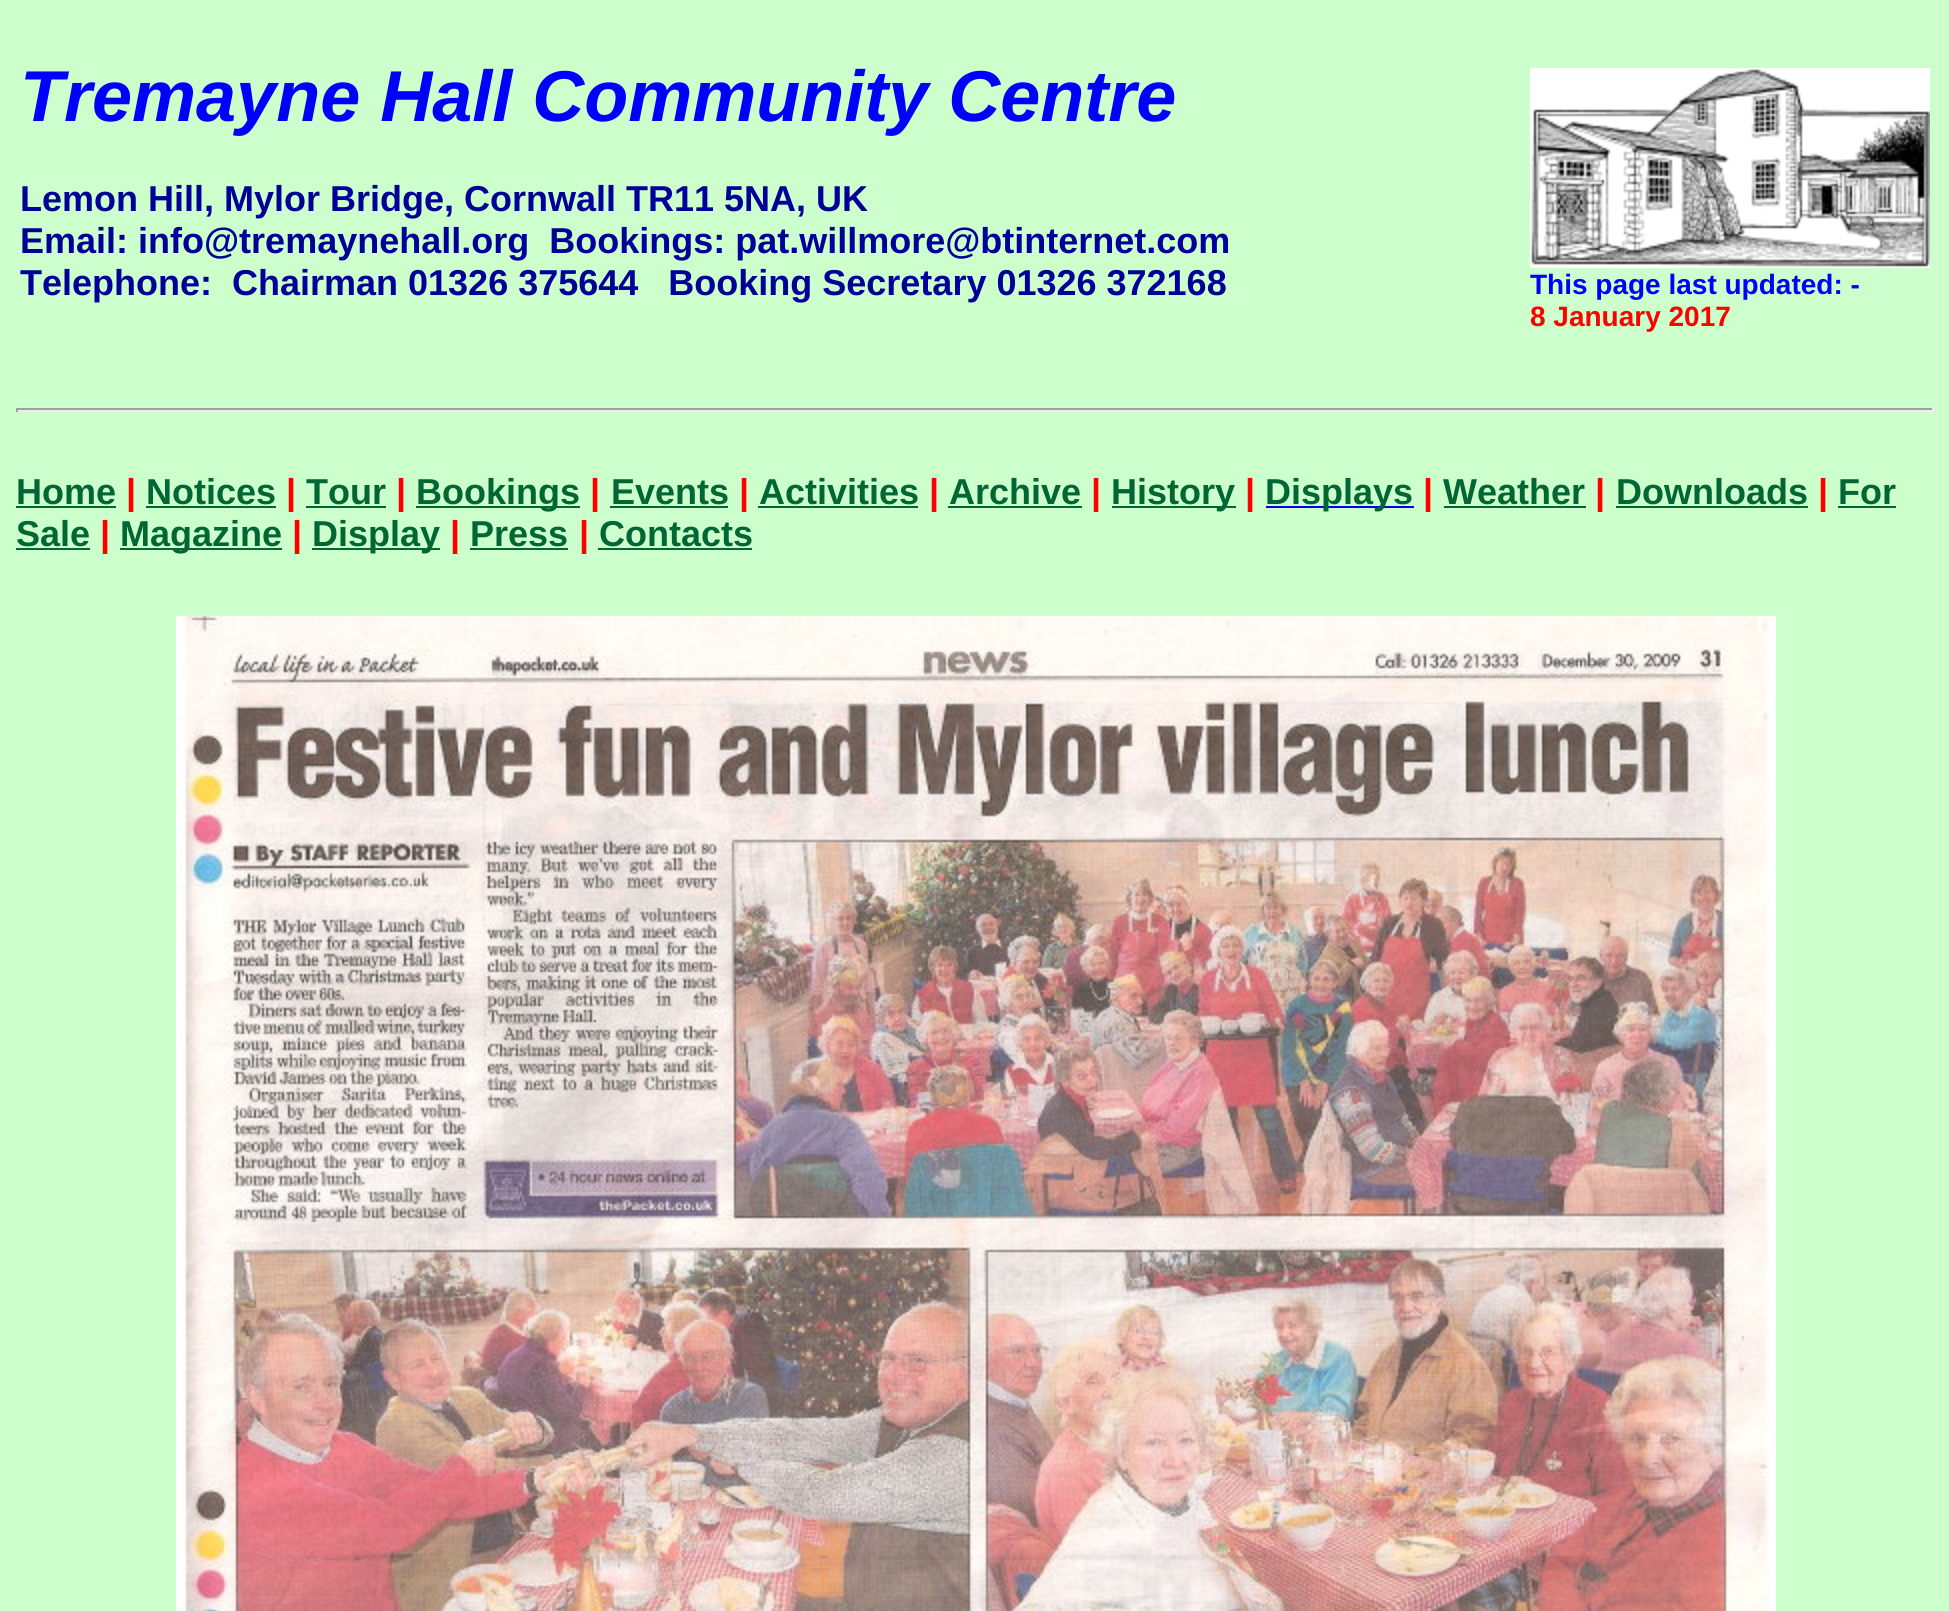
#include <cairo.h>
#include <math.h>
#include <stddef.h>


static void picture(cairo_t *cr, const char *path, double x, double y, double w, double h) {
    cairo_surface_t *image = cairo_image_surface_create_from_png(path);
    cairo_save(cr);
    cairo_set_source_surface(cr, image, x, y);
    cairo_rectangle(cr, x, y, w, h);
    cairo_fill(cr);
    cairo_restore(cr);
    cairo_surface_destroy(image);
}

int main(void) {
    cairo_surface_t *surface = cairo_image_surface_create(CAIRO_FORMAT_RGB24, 1949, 1611);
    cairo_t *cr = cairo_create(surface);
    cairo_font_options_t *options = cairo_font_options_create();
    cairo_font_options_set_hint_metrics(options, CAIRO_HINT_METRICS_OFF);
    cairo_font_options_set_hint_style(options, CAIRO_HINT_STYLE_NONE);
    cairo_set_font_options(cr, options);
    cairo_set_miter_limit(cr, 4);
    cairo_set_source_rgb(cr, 0.8, 1, 0.8);
    cairo_paint(cr);
    cairo_select_font_face(cr, "Liberation Sans", CAIRO_FONT_SLANT_ITALIC, CAIRO_FONT_WEIGHT_BOLD);
    cairo_set_font_size(cr, 72);
    cairo_set_source_rgb(cr, 0, 0, 1);
    cairo_move_to(cr, 20, 121);
    cairo_show_text(cr, "Tremayne Hall Community Centre");
    cairo_select_font_face(cr, "Liberation Sans", CAIRO_FONT_SLANT_NORMAL, CAIRO_FONT_WEIGHT_BOLD);
    cairo_set_font_size(cr, 36);
    cairo_set_source_rgb(cr, 0, 0, 0.6);
    cairo_move_to(cr, 20, 211);
    cairo_show_text(cr, "Lemon Hill, Mylor Bridge, Cornwall TR11 5NA, UK");
    cairo_move_to(cr, 20, 253);
    cairo_show_text(cr, "Email: info@tremaynehall.org  Bookings: pat.willmore@btinternet.com");
    cairo_move_to(cr, 20, 295);
    cairo_show_text(cr, "Telephone:  Chairman 01326 375644   Booking Secretary 01326 372168");
    picture(cr, "img1.png", 1530, 68, 400, 200);
    cairo_set_font_size(cr, 28);
    cairo_set_source_rgb(cr, 0, 0, 1);
    cairo_move_to(cr, 1530, 294);
    cairo_show_text(cr, "This page last updated: -");
    cairo_set_source_rgb(cr, 1, 0, 0);
    cairo_move_to(cr, 1530, 326);
    cairo_show_text(cr, "8 January 2017");
    cairo_set_source_rgb(cr, 0.624, 0.624, 0.624);
    cairo_rectangle(cr, 16, 408, 1918, 2);
    cairo_fill(cr);
    cairo_set_source_rgb(cr, 0.933, 0.933, 0.933);
    cairo_rectangle(cr, 1932, 408, 2, 4);
    cairo_fill(cr);
    cairo_rectangle(cr, 16, 410, 1918, 2);
    cairo_fill(cr);
    cairo_set_source_rgb(cr, 0.624, 0.624, 0.624);
    cairo_rectangle(cr, 16, 408, 2, 4);
    cairo_fill(cr);
    cairo_set_font_size(cr, 36);
    cairo_set_source_rgb(cr, 0, 0.4, 0.2);
    cairo_move_to(cr, 16, 504);
    cairo_show_text(cr, "Home");
    cairo_rectangle(cr, 16, 506, 100, 2);
    cairo_fill(cr);
    cairo_set_source_rgb(cr, 1, 0, 0);
    cairo_move_to(cr, 126, 504);
    cairo_show_text(cr, "|");
    cairo_set_source_rgb(cr, 0, 0.4, 0.2);
    cairo_move_to(cr, 146, 504);
    cairo_show_text(cr, "Notices");
    cairo_rectangle(cr, 146, 506, 130, 2);
    cairo_fill(cr);
    cairo_set_source_rgb(cr, 1, 0, 0);
    cairo_move_to(cr, 286, 504);
    cairo_show_text(cr, "|");
    cairo_set_source_rgb(cr, 0, 0.4, 0.2);
    cairo_move_to(cr, 306, 504);
    cairo_show_text(cr, "Tour");
    cairo_rectangle(cr, 306, 506, 80, 2);
    cairo_fill(cr);
    cairo_set_source_rgb(cr, 1, 0, 0);
    cairo_move_to(cr, 396, 504);
    cairo_show_text(cr, "|");
    cairo_set_source_rgb(cr, 0, 0.4, 0.2);
    cairo_rectangle(cr, 416, 506, 164, 2);
    cairo_fill(cr);
    cairo_move_to(cr, 416, 504);
    cairo_show_text(cr, "Bookings");
    cairo_set_source_rgb(cr, 1, 0, 0);
    cairo_move_to(cr, 590, 504);
    cairo_show_text(cr, "|");
    cairo_set_source_rgb(cr, 0, 0.4, 0.2);
    cairo_move_to(cr, 611, 504);
    cairo_show_text(cr, "Events");
    cairo_rectangle(cr, 610, 506, 118, 2);
    cairo_fill(cr);
    cairo_set_source_rgb(cr, 1, 0, 0);
    cairo_move_to(cr, 739, 504);
    cairo_show_text(cr, "|");
    cairo_set_source_rgb(cr, 0, 0.4, 0.2);
    cairo_move_to(cr, 759, 504);
    cairo_show_text(cr, "Activities");
    cairo_rectangle(cr, 758, 506, 160, 2);
    cairo_fill(cr);
    cairo_set_source_rgb(cr, 1, 0, 0);
    cairo_move_to(cr, 929, 504);
    cairo_show_text(cr, "|");
    cairo_set_source_rgb(cr, 0, 0.4, 0.2);
    cairo_move_to(cr, 949, 504);
    cairo_show_text(cr, "Archive");
    cairo_rectangle(cr, 948, 506, 134, 2);
    cairo_fill(cr);
    cairo_set_source_rgb(cr, 1, 0, 0);
    cairo_move_to(cr, 1091, 504);
    cairo_show_text(cr, "|");
    cairo_set_source_rgb(cr, 0, 0.4, 0.2);
    cairo_rectangle(cr, 1112, 506, 124, 2);
    cairo_fill(cr);
    cairo_move_to(cr, 1111, 504);
    cairo_show_text(cr, "History");
    cairo_set_source_rgb(cr, 1, 0, 0);
    cairo_move_to(cr, 1245, 504);
    cairo_show_text(cr, "|");
    cairo_set_source_rgb(cr, 0, 0, 0.933);
    cairo_rectangle(cr, 1266, 506, 148, 2);
    cairo_fill(cr);
    cairo_set_source_rgb(cr, 0, 0.4, 0.2);
    cairo_move_to(cr, 1265, 504);
    cairo_show_text(cr, "Displays");
    cairo_set_source_rgb(cr, 1, 0, 0);
    cairo_move_to(cr, 1423, 504);
    cairo_show_text(cr, "|");
    cairo_set_source_rgb(cr, 0, 0.4, 0.2);
    cairo_move_to(cr, 1443, 504);
    cairo_show_text(cr, "Weather");
    cairo_rectangle(cr, 1444, 506, 142, 2);
    cairo_fill(cr);
    cairo_set_source_rgb(cr, 1, 0, 0);
    cairo_move_to(cr, 1595, 504);
    cairo_show_text(cr, "|");
    cairo_set_source_rgb(cr, 0, 0.4, 0.2);
    cairo_move_to(cr, 1616, 504);
    cairo_show_text(cr, "Downloads");
    cairo_rectangle(cr, 1616, 506, 192, 2);
    cairo_fill(cr);
    cairo_set_source_rgb(cr, 1, 0, 0);
    cairo_move_to(cr, 1818, 504);
    cairo_show_text(cr, "|");
    cairo_set_source_rgb(cr, 0, 0.4, 0.2);
    cairo_move_to(cr, 1838, 504);
    cairo_show_text(cr, "For");
    cairo_rectangle(cr, 1838, 506, 58, 2);
    cairo_fill(cr);
    cairo_move_to(cr, 16, 546);
    cairo_show_text(cr, "Sale");
    cairo_rectangle(cr, 16, 548, 74, 2);
    cairo_fill(cr);
    cairo_set_source_rgb(cr, 1, 0, 0);
    cairo_move_to(cr, 100, 546);
    cairo_show_text(cr, "|");
    cairo_set_source_rgb(cr, 0, 0.4, 0.2);
    cairo_rectangle(cr, 120, 548, 162, 2);
    cairo_fill(cr);
    cairo_move_to(cr, 120, 546);
    cairo_show_text(cr, "Magazine");
    cairo_set_source_rgb(cr, 1, 0, 0);
    cairo_move_to(cr, 292, 546);
    cairo_show_text(cr, "|");
    cairo_set_source_rgb(cr, 0, 0.4, 0.2);
    cairo_rectangle(cr, 312, 548, 128, 2);
    cairo_fill(cr);
    cairo_move_to(cr, 312, 546);
    cairo_show_text(cr, "Display");
    cairo_set_source_rgb(cr, 1, 0, 0);
    cairo_move_to(cr, 450, 546);
    cairo_show_text(cr, "|");
    cairo_set_source_rgb(cr, 0, 0.4, 0.2);
    cairo_move_to(cr, 470, 546);
    cairo_show_text(cr, "Press");
    cairo_rectangle(cr, 470, 548, 98, 2);
    cairo_fill(cr);
    cairo_set_source_rgb(cr, 1, 0, 0);
    cairo_move_to(cr, 579, 546);
    cairo_show_text(cr, "|");
    cairo_set_source_rgb(cr, 0, 0.4, 0.2);
    cairo_move_to(cr, 599, 546);
    cairo_show_text(cr, "Contacts");
    cairo_rectangle(cr, 598, 548, 154, 2);
    cairo_fill(cr);
    picture(cr, "img2.png", 176, 616, 1600, 995);
    cairo_surface_write_to_png(surface, "page.png");
    cairo_font_options_destroy(options);
    cairo_destroy(cr);
    cairo_surface_destroy(surface);
    return 0;
}
